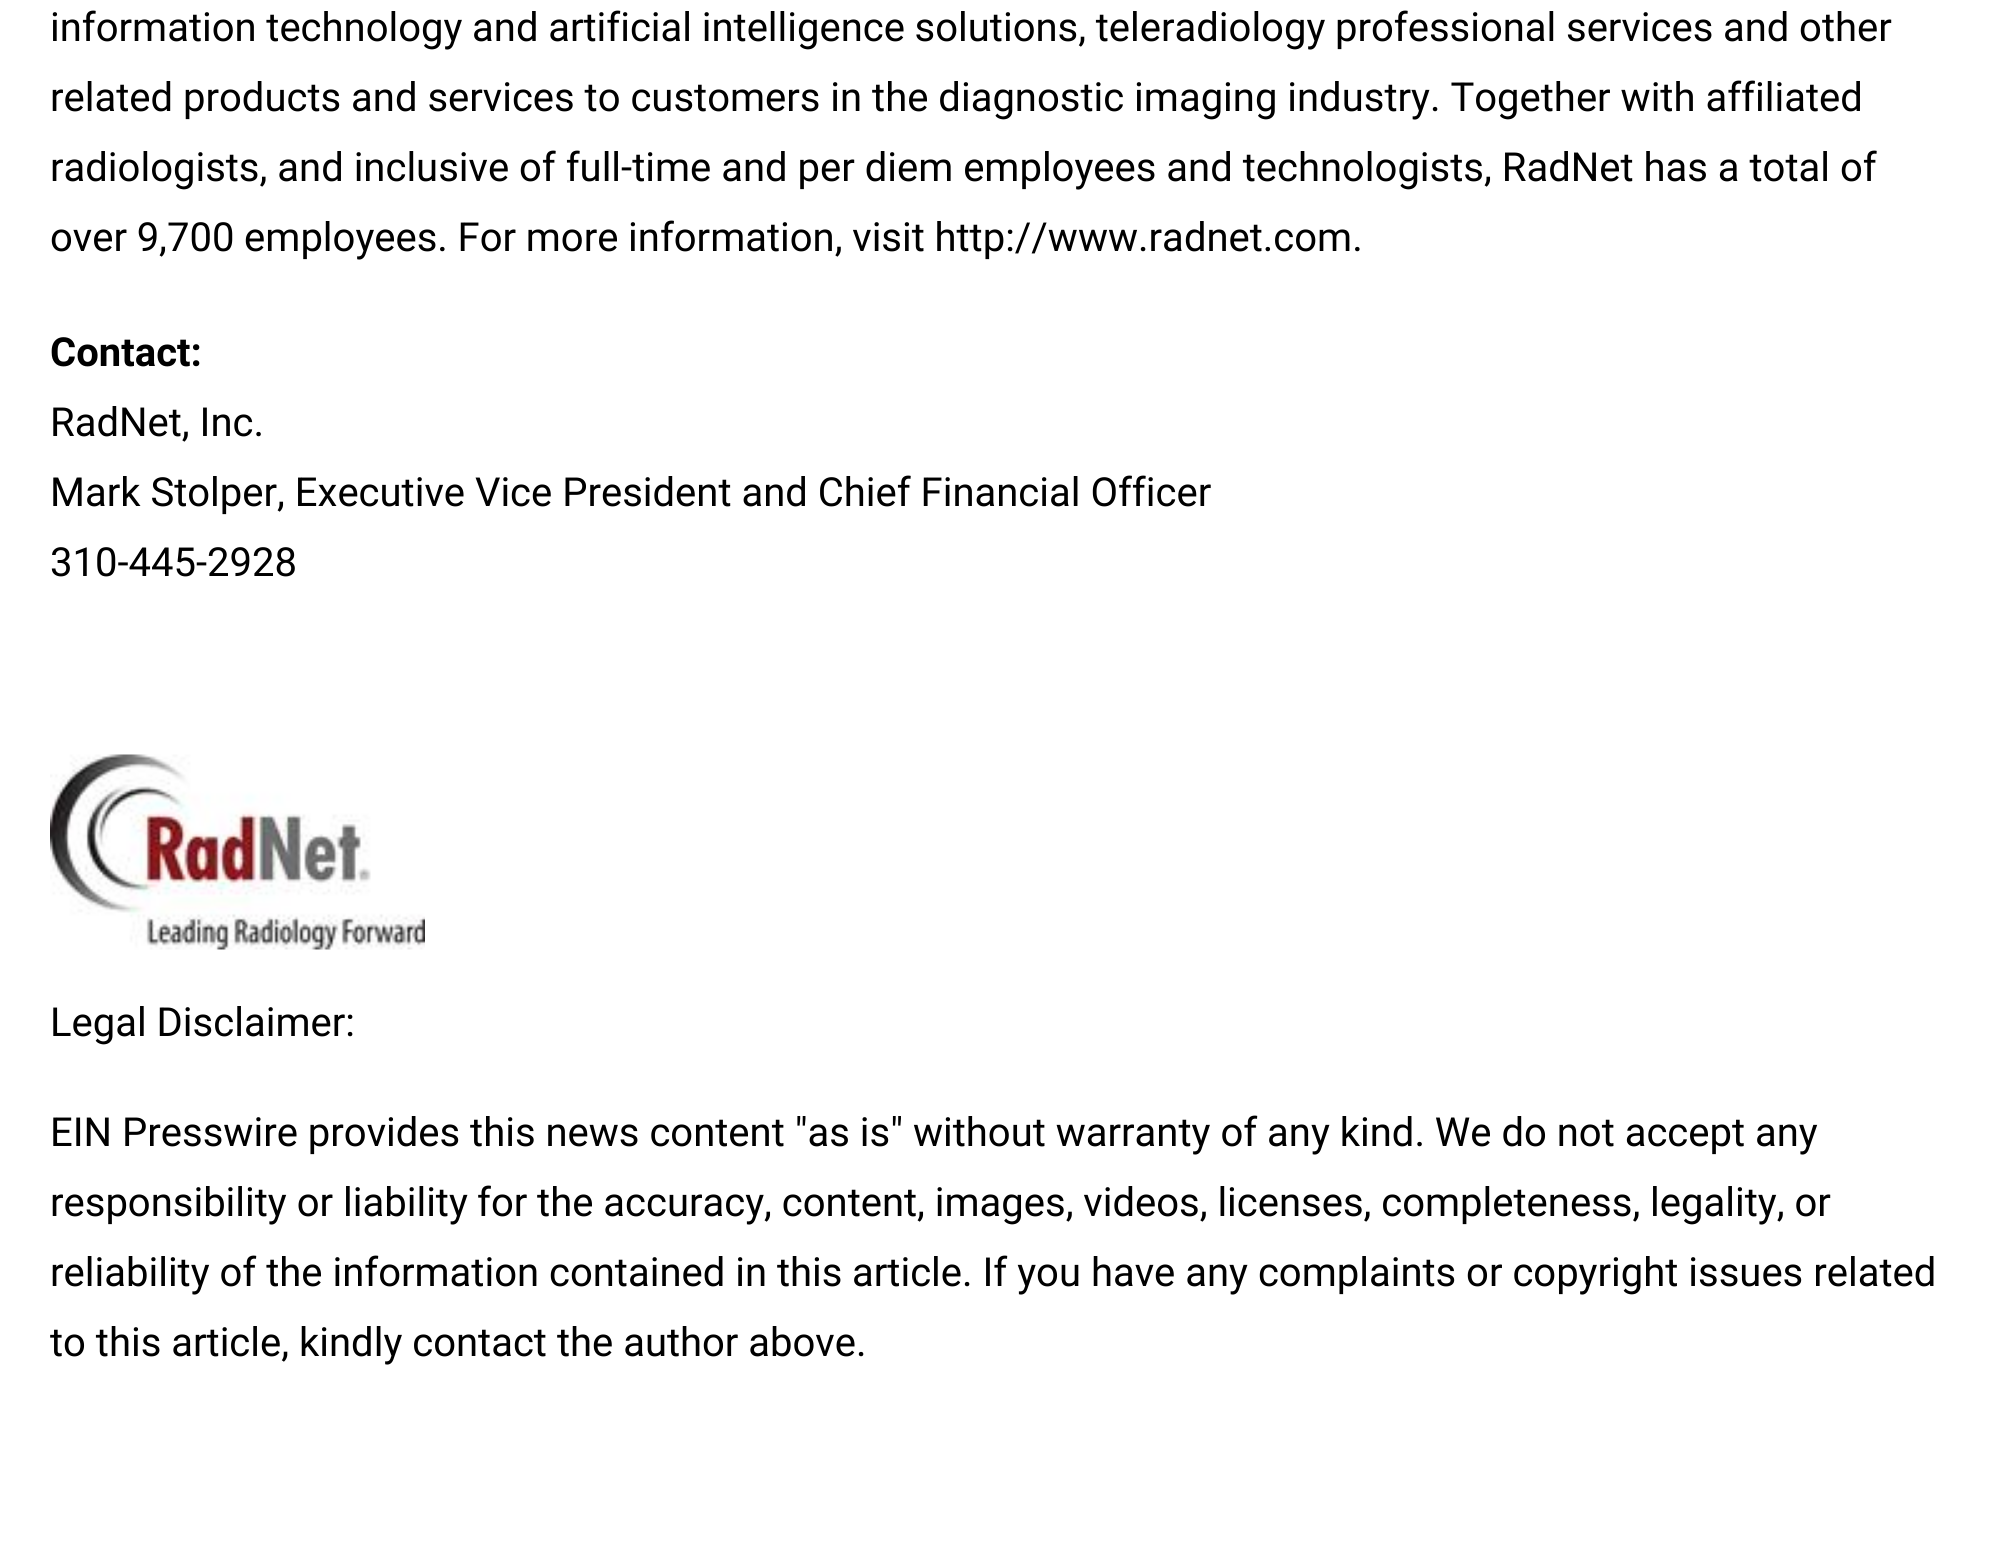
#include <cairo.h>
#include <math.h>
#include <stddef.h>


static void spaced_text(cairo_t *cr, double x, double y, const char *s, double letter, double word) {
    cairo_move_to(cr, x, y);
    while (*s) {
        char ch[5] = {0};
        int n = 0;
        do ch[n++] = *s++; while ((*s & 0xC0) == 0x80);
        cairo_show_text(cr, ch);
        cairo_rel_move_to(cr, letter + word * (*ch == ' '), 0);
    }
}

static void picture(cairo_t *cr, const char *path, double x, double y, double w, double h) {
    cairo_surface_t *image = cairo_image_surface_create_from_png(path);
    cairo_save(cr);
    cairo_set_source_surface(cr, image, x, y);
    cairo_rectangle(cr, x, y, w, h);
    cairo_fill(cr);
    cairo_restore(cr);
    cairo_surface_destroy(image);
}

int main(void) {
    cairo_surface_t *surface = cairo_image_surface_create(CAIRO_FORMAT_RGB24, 1998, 1552);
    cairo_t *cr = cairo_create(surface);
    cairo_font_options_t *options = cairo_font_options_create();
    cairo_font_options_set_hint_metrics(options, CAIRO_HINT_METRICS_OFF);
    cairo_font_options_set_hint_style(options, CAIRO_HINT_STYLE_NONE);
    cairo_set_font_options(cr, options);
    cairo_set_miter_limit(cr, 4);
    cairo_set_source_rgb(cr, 1, 1, 1);
    cairo_paint(cr);
    cairo_select_font_face(cr, "Roboto", CAIRO_FONT_SLANT_NORMAL, CAIRO_FONT_WEIGHT_NORMAL);
    cairo_set_font_size(cr, 40);
    cairo_set_source_rgb(cr, 0, 0, 0);
    spaced_text(cr, 50, 41, "information technology and artificial intelligence solutions, teleradiology professional services and other", 0, -0.25);
    cairo_move_to(cr, 50, 111);
    cairo_show_text(cr, "related products and services to customers in the diagnostic imaging industry. Together with affiliated");
    cairo_move_to(cr, 50, 181);
    cairo_show_text(cr, "radiologists, and inclusive of full-time and per diem employees and technologists, RadNet has a total of");
    spaced_text(cr, 50, 251, "over 9,700 employees. For more information, visit http://www.radnet.com.", 0, -0.25);
    cairo_select_font_face(cr, "Roboto", CAIRO_FONT_SLANT_NORMAL, CAIRO_FONT_WEIGHT_BOLD);
    cairo_move_to(cr, 50, 366);
    cairo_show_text(cr, "Contact:");
    cairo_select_font_face(cr, "Roboto", CAIRO_FONT_SLANT_NORMAL, CAIRO_FONT_WEIGHT_NORMAL);
    cairo_move_to(cr, 50, 436);
    cairo_show_text(cr, "RadNet, Inc.");
    cairo_move_to(cr, 50, 506);
    cairo_show_text(cr, "Mark Stolper, Executive Vice President and Chief Financial Officer");
    cairo_move_to(cr, 50, 576);
    cairo_show_text(cr, "310-445-2928");
    picture(cr, "img1.png", 50, 754, 375, 196);
    cairo_move_to(cr, 50, 1036);
    cairo_show_text(cr, "Legal Disclaimer:");
    cairo_move_to(cr, 50, 1146);
    cairo_show_text(cr, "EIN Presswire provides this news content \"as is\" without warranty of any kind. We do not accept any");
    cairo_move_to(cr, 50, 1216);
    cairo_show_text(cr, "responsibility or liability");
    spaced_text(cr, 477, 1216, "for the accuracy, content, images, videos, licenses, completeness, legality, or", 0, -0.1);
    cairo_move_to(cr, 50, 1286);
    cairo_show_text(cr, "reliability of the information contained in this");
    cairo_move_to(cr, 852, 1286);
    cairo_show_text(cr, "article. If you have any complaints or copyright issues related");
    cairo_move_to(cr, 50, 1356);
    cairo_show_text(cr, "to this article, kindly contact the author above.");
    cairo_surface_write_to_png(surface, "page.png");
    cairo_font_options_destroy(options);
    cairo_destroy(cr);
    cairo_surface_destroy(surface);
    return 0;
}
